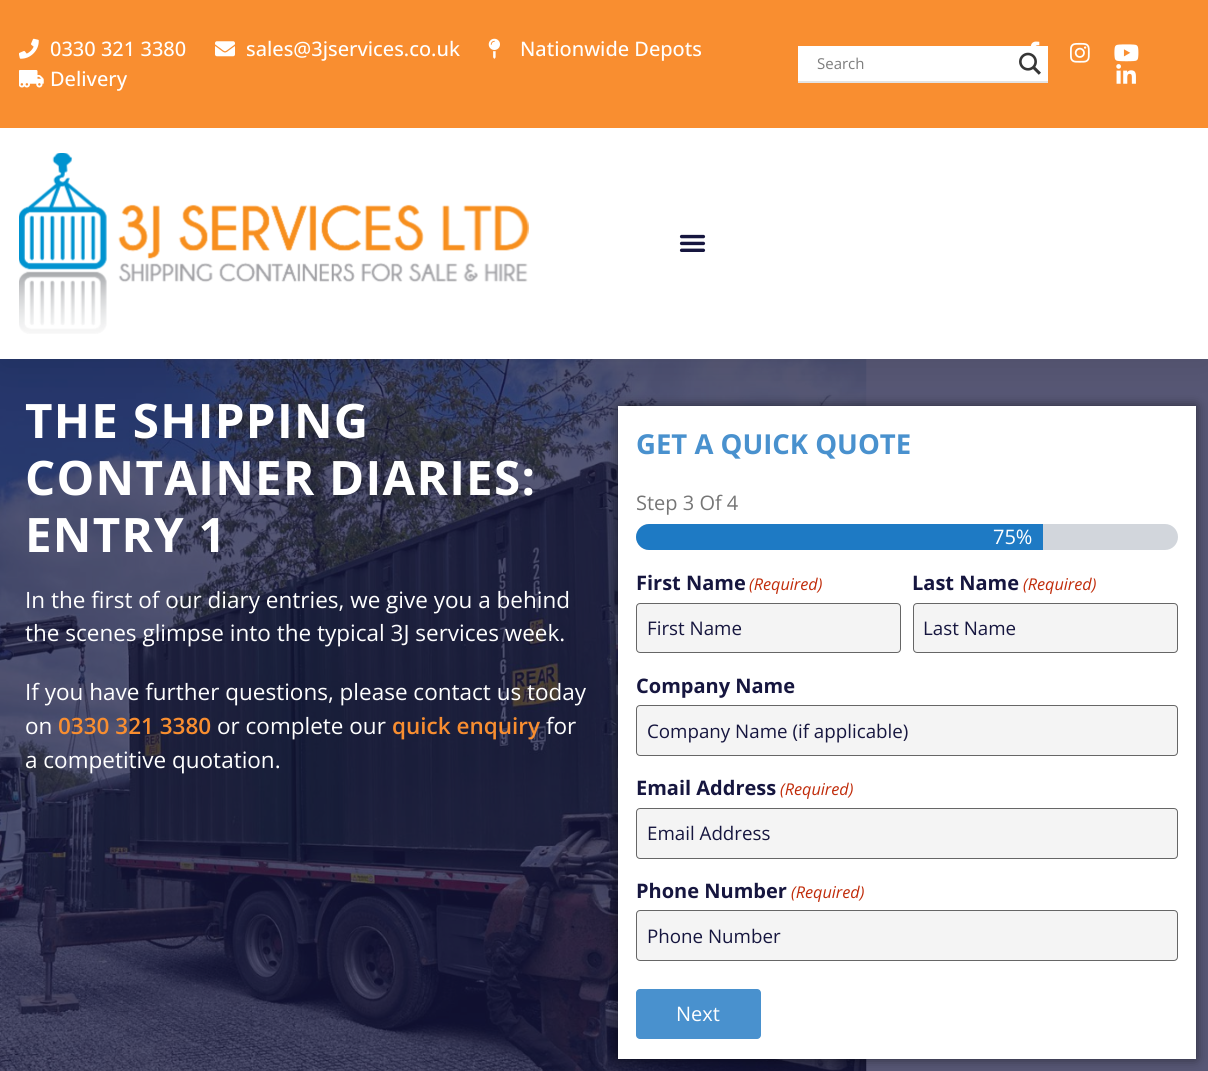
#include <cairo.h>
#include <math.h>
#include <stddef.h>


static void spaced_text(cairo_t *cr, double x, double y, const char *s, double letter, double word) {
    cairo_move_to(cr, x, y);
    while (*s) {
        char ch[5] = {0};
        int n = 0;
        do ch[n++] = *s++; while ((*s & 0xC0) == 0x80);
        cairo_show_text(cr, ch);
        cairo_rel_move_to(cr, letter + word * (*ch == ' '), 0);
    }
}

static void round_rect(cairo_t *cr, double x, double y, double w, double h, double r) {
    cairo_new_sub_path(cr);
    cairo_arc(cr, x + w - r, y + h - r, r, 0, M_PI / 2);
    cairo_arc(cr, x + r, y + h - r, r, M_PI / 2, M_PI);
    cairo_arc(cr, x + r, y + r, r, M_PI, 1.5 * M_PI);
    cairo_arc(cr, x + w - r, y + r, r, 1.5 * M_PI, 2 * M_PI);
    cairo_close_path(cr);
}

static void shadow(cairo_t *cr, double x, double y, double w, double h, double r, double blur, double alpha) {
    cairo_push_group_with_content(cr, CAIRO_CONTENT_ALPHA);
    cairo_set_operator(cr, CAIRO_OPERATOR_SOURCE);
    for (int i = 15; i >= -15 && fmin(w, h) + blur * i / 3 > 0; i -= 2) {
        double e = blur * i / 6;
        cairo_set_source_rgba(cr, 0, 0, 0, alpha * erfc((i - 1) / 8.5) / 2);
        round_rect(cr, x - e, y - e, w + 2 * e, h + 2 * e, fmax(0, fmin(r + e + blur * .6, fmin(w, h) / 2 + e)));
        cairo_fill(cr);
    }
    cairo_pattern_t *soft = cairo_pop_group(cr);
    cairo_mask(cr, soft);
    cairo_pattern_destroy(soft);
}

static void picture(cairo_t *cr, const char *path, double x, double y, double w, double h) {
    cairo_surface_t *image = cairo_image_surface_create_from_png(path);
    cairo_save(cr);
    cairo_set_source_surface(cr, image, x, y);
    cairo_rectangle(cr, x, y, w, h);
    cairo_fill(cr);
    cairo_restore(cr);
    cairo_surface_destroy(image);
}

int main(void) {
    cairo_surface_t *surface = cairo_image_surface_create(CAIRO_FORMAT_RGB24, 1208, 1071);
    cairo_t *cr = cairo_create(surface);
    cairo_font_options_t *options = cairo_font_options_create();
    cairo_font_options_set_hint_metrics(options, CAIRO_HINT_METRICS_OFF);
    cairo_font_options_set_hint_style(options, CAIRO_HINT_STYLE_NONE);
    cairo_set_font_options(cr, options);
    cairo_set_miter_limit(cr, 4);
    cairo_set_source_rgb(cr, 0.341, 0.341, 0.459);
    cairo_paint(cr);
    picture(cr, "img12.png", 0, 359, 867, 712);
    cairo_set_source_rgb(cr, 0, 0, 0);
    shadow(cr, 618, 406, 578, 653, 0, 6, 0.5);
    cairo_set_source_rgb(cr, 1, 1, 1);
    cairo_rectangle(cr, 618, 406, 578, 653);
    cairo_fill(cr);
    cairo_set_source_rgb(cr, 0, 0, 0);
    shadow(cr, 0, 6, 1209, 359, 0, 19, 0.1);
    cairo_set_source_rgb(cr, 0.973, 0.557, 0.188);
    cairo_rectangle(cr, 0, 0, 1208, 128);
    cairo_fill(cr);
    picture(cr, "img1.png", 19, 38, 20, 21);
    cairo_select_font_face(cr, "Open Sans Medium", CAIRO_FONT_SLANT_NORMAL, CAIRO_FONT_WEIGHT_NORMAL);
    cairo_set_font_size(cr, 20);
    cairo_set_source_rgb(cr, 1, 1, 1);
    cairo_move_to(cr, 50, 56);
    cairo_show_text(cr, "0330 321 3380");
    picture(cr, "img2.png", 215, 41, 20, 16);
    cairo_move_to(cr, 246, 56);
    cairo_show_text(cr, "sales@3jservices.co.uk");
    picture(cr, "img3.png", 488, 38, 12, 21);
    cairo_move_to(cr, 520, 56);
    cairo_show_text(cr, "Nationwide Depots");
    picture(cr, "img4.png", 19, 70, 25, 18);
    cairo_move_to(cr, 50, 86);
    cairo_show_text(cr, "Delivery");
    cairo_set_source_rgb(cr, 0.894, 0.894, 0.894);
    cairo_new_path(cr);
    cairo_move_to(cr, 798, 81);
    cairo_line_to(cr, 798, 83);
    cairo_line_to(cr, 1048, 83);
    cairo_line_to(cr, 1048, 48);
    cairo_line_to(cr, 1048, 81);
    cairo_close_path(cr);
    cairo_fill(cr);
    cairo_set_source_rgb(cr, 1, 1, 1);
    cairo_rectangle(cr, 798, 46, 250, 35);
    cairo_fill(cr);
    cairo_select_font_face(cr, "Open Sans", CAIRO_FONT_SLANT_NORMAL, CAIRO_FONT_WEIGHT_NORMAL);
    cairo_set_font_size(cr, 15);
    cairo_set_source_rgb(cr, 0.49, 0.49, 0.49);
    cairo_move_to(cr, 817, 69);
    cairo_show_text(cr, "Search");
    picture(cr, "img5.png", 1019, 52, 22, 23);
    picture(cr, "img6.png", 1030, 41, 10, 5);
    picture(cr, "img7.png", 1070, 42, 20, 21);
    picture(cr, "img8.png", 1114, 44, 25, 18);
    picture(cr, "img9.png", 1116, 64, 20, 20);
    cairo_set_source_rgb(cr, 1, 1, 1);
    cairo_rectangle(cr, 0, 128, 1208, 231);
    cairo_fill(cr);
    picture(cr, "img10.png", 19, 153, 511, 181);
    picture(cr, "img11.png", 679, 234, 27, 18);
    cairo_select_font_face(cr, "Open Sans", CAIRO_FONT_SLANT_NORMAL, CAIRO_FONT_WEIGHT_BOLD);
    cairo_set_font_size(cr, 47.5);
    spaced_text(cr, 25, 438, "THE SHIPPING", 1.25, 0);
    spaced_text(cr, 25, 495, "CONTAINER DIARIES:", 1.25, 0);
    spaced_text(cr, 25, 552, "ENTRY 1", 1.25, 0);
    cairo_select_font_face(cr, "Open Sans", CAIRO_FONT_SLANT_NORMAL, CAIRO_FONT_WEIGHT_NORMAL);
    cairo_set_font_size(cr, 22.5);
    cairo_move_to(cr, 25, 608);
    cairo_show_text(cr, "In the first of our diary entries, we give you a behind");
    cairo_move_to(cr, 25, 641);
    cairo_show_text(cr, "the scenes glimpse into the typical 3J services week.");
    cairo_move_to(cr, 25, 700);
    cairo_show_text(cr, "If you have further questions, please contact us today");
    cairo_move_to(cr, 25, 734);
    cairo_show_text(cr, "on");
    cairo_select_font_face(cr, "Open Sans SemiBold", CAIRO_FONT_SLANT_NORMAL, CAIRO_FONT_WEIGHT_NORMAL);
    cairo_set_source_rgb(cr, 0.973, 0.557, 0.188);
    cairo_move_to(cr, 58, 734);
    cairo_show_text(cr, "0330 321 3380");
    cairo_select_font_face(cr, "Open Sans", CAIRO_FONT_SLANT_NORMAL, CAIRO_FONT_WEIGHT_NORMAL);
    cairo_set_source_rgb(cr, 1, 1, 1);
    cairo_move_to(cr, 217, 734);
    cairo_show_text(cr, "or complete our");
    cairo_select_font_face(cr, "Open Sans SemiBold", CAIRO_FONT_SLANT_NORMAL, CAIRO_FONT_WEIGHT_NORMAL);
    cairo_set_source_rgb(cr, 0.973, 0.557, 0.188);
    cairo_move_to(cr, 392, 734);
    cairo_show_text(cr, "quick enquiry");
    cairo_select_font_face(cr, "Open Sans", CAIRO_FONT_SLANT_NORMAL, CAIRO_FONT_WEIGHT_NORMAL);
    cairo_set_source_rgb(cr, 1, 1, 1);
    cairo_move_to(cr, 546, 734);
    cairo_show_text(cr, "for");
    cairo_move_to(cr, 25, 768);
    cairo_show_text(cr, "a competitive quotation.");
    cairo_select_font_face(cr, "Open Sans", CAIRO_FONT_SLANT_NORMAL, CAIRO_FONT_WEIGHT_BOLD);
    cairo_set_font_size(cr, 27.5);
    cairo_set_source_rgb(cr, 0.286, 0.569, 0.808);
    cairo_move_to(cr, 636, 454);
    cairo_show_text(cr, "GET A QUICK QUOTE");
    cairo_select_font_face(cr, "Open Sans", CAIRO_FONT_SLANT_NORMAL, CAIRO_FONT_WEIGHT_NORMAL);
    cairo_set_font_size(cr, 20);
    cairo_set_source_rgb(cr, 0.463, 0.463, 0.463);
    cairo_move_to(cr, 636, 510);
    cairo_show_text(cr, "Step 3 Of 4");
    cairo_set_source_rgb(cr, 0.824, 0.839, 0.863);
    round_rect(cr, 636, 524, 542, 26, 13);
    cairo_fill(cr);
    cairo_set_source_rgb(cr, 0.118, 0.478, 0.769);
    cairo_new_path(cr);
    cairo_move_to(cr, 649, 524);
    cairo_line_to(cr, 1043, 524);
    cairo_line_to(cr, 1043, 550);
    cairo_line_to(cr, 649, 550);
    cairo_curve_to(cr, 642, 550, 636, 544, 636, 537);
    cairo_curve_to(cr, 636, 530, 642, 524, 649, 524);
    cairo_close_path(cr);
    cairo_fill(cr);
    cairo_set_source_rgb(cr, 1, 1, 1);
    cairo_move_to(cr, 993, 544);
    cairo_show_text(cr, "75%");
    cairo_select_font_face(cr, "Open Sans", CAIRO_FONT_SLANT_NORMAL, CAIRO_FONT_WEIGHT_BOLD);
    cairo_set_source_rgb(cr, 0.086, 0.086, 0.247);
    cairo_move_to(cr, 636, 590);
    cairo_show_text(cr, "First Name");
    cairo_select_font_face(cr, "Open Sans", CAIRO_FONT_SLANT_ITALIC, CAIRO_FONT_WEIGHT_NORMAL);
    cairo_set_font_size(cr, 16.25);
    cairo_set_source_rgb(cr, 0.753, 0.169, 0.039);
    cairo_move_to(cr, 749, 590);
    cairo_show_text(cr, "(Required)");
    cairo_set_source_rgb(cr, 0.957, 0.957, 0.957);
    round_rect(cr, 636.5, 603.5, 264, 49, 3.5);
    cairo_fill_preserve(cr);
    cairo_set_source_rgb(cr, 0.4, 0.4, 0.4);
    cairo_set_line_width(cr, 1);
    cairo_stroke(cr);
    cairo_select_font_face(cr, "Open Sans", CAIRO_FONT_SLANT_NORMAL, CAIRO_FONT_WEIGHT_NORMAL);
    cairo_set_font_size(cr, 18.75);
    cairo_set_source_rgb(cr, 0.086, 0.086, 0.247);
    cairo_move_to(cr, 647, 635);
    cairo_show_text(cr, "First Name");
    cairo_select_font_face(cr, "Open Sans", CAIRO_FONT_SLANT_NORMAL, CAIRO_FONT_WEIGHT_BOLD);
    cairo_set_font_size(cr, 20);
    cairo_move_to(cr, 912, 590);
    cairo_show_text(cr, "Last Name");
    cairo_select_font_face(cr, "Open Sans", CAIRO_FONT_SLANT_ITALIC, CAIRO_FONT_WEIGHT_NORMAL);
    cairo_set_font_size(cr, 16.25);
    cairo_set_source_rgb(cr, 0.753, 0.169, 0.039);
    cairo_move_to(cr, 1023, 590);
    cairo_show_text(cr, "(Required)");
    cairo_set_source_rgb(cr, 0.957, 0.957, 0.957);
    round_rect(cr, 913.5, 603.5, 264, 49, 3.5);
    cairo_fill_preserve(cr);
    cairo_set_source_rgb(cr, 0.4, 0.4, 0.4);
    cairo_stroke(cr);
    cairo_select_font_face(cr, "Open Sans", CAIRO_FONT_SLANT_NORMAL, CAIRO_FONT_WEIGHT_NORMAL);
    cairo_set_font_size(cr, 18.75);
    cairo_set_source_rgb(cr, 0.086, 0.086, 0.247);
    cairo_move_to(cr, 923, 635);
    cairo_show_text(cr, "Last Name");
    cairo_select_font_face(cr, "Open Sans", CAIRO_FONT_SLANT_NORMAL, CAIRO_FONT_WEIGHT_BOLD);
    cairo_set_font_size(cr, 20);
    cairo_move_to(cr, 636, 693);
    cairo_show_text(cr, "Company Name");
    cairo_set_source_rgb(cr, 0.957, 0.957, 0.957);
    round_rect(cr, 636.5, 705.5, 541, 50, 3.5);
    cairo_fill_preserve(cr);
    cairo_set_source_rgb(cr, 0.4, 0.4, 0.4);
    cairo_stroke(cr);
    cairo_select_font_face(cr, "Open Sans", CAIRO_FONT_SLANT_NORMAL, CAIRO_FONT_WEIGHT_NORMAL);
    cairo_set_font_size(cr, 18.75);
    cairo_set_source_rgb(cr, 0.086, 0.086, 0.247);
    cairo_move_to(cr, 647, 738);
    cairo_show_text(cr, "Company Name (if applicable)");
    cairo_select_font_face(cr, "Open Sans", CAIRO_FONT_SLANT_NORMAL, CAIRO_FONT_WEIGHT_BOLD);
    cairo_set_font_size(cr, 20);
    cairo_move_to(cr, 636, 795);
    cairo_show_text(cr, "Email Address");
    cairo_select_font_face(cr, "Open Sans", CAIRO_FONT_SLANT_ITALIC, CAIRO_FONT_WEIGHT_NORMAL);
    cairo_set_font_size(cr, 16.25);
    cairo_set_source_rgb(cr, 0.753, 0.169, 0.039);
    cairo_move_to(cr, 780, 795);
    cairo_show_text(cr, "(Required)");
    cairo_set_source_rgb(cr, 0.957, 0.957, 0.957);
    round_rect(cr, 636.5, 808.5, 541, 50, 3.5);
    cairo_fill_preserve(cr);
    cairo_set_source_rgb(cr, 0.4, 0.4, 0.4);
    cairo_stroke(cr);
    cairo_select_font_face(cr, "Open Sans", CAIRO_FONT_SLANT_NORMAL, CAIRO_FONT_WEIGHT_NORMAL);
    cairo_set_font_size(cr, 18.75);
    cairo_set_source_rgb(cr, 0.086, 0.086, 0.247);
    cairo_move_to(cr, 647, 840);
    cairo_show_text(cr, "Email Address");
    cairo_select_font_face(cr, "Open Sans", CAIRO_FONT_SLANT_NORMAL, CAIRO_FONT_WEIGHT_BOLD);
    cairo_set_font_size(cr, 20);
    cairo_move_to(cr, 636, 898);
    cairo_show_text(cr, "Phone Number");
    cairo_select_font_face(cr, "Open Sans", CAIRO_FONT_SLANT_ITALIC, CAIRO_FONT_WEIGHT_NORMAL);
    cairo_set_font_size(cr, 16.25);
    cairo_set_source_rgb(cr, 0.753, 0.169, 0.039);
    cairo_move_to(cr, 791, 898);
    cairo_show_text(cr, "(Required)");
    cairo_set_source_rgb(cr, 0.957, 0.957, 0.957);
    round_rect(cr, 636.5, 910.5, 541, 50, 3.5);
    cairo_fill_preserve(cr);
    cairo_set_source_rgb(cr, 0.4, 0.4, 0.4);
    cairo_stroke(cr);
    cairo_select_font_face(cr, "Open Sans", CAIRO_FONT_SLANT_NORMAL, CAIRO_FONT_WEIGHT_NORMAL);
    cairo_set_font_size(cr, 18.75);
    cairo_set_source_rgb(cr, 0.086, 0.086, 0.247);
    cairo_move_to(cr, 647, 943);
    cairo_show_text(cr, "Phone Number");
    cairo_set_source_rgb(cr, 0.286, 0.569, 0.808);
    round_rect(cr, 636, 989, 125, 50, 4);
    cairo_fill(cr);
    cairo_set_font_size(cr, 20);
    cairo_set_source_rgb(cr, 1, 1, 1);
    cairo_move_to(cr, 676, 1021);
    cairo_show_text(cr, "Next");
    cairo_surface_write_to_png(surface, "page.png");
    cairo_font_options_destroy(options);
    cairo_destroy(cr);
    cairo_surface_destroy(surface);
    return 0;
}
